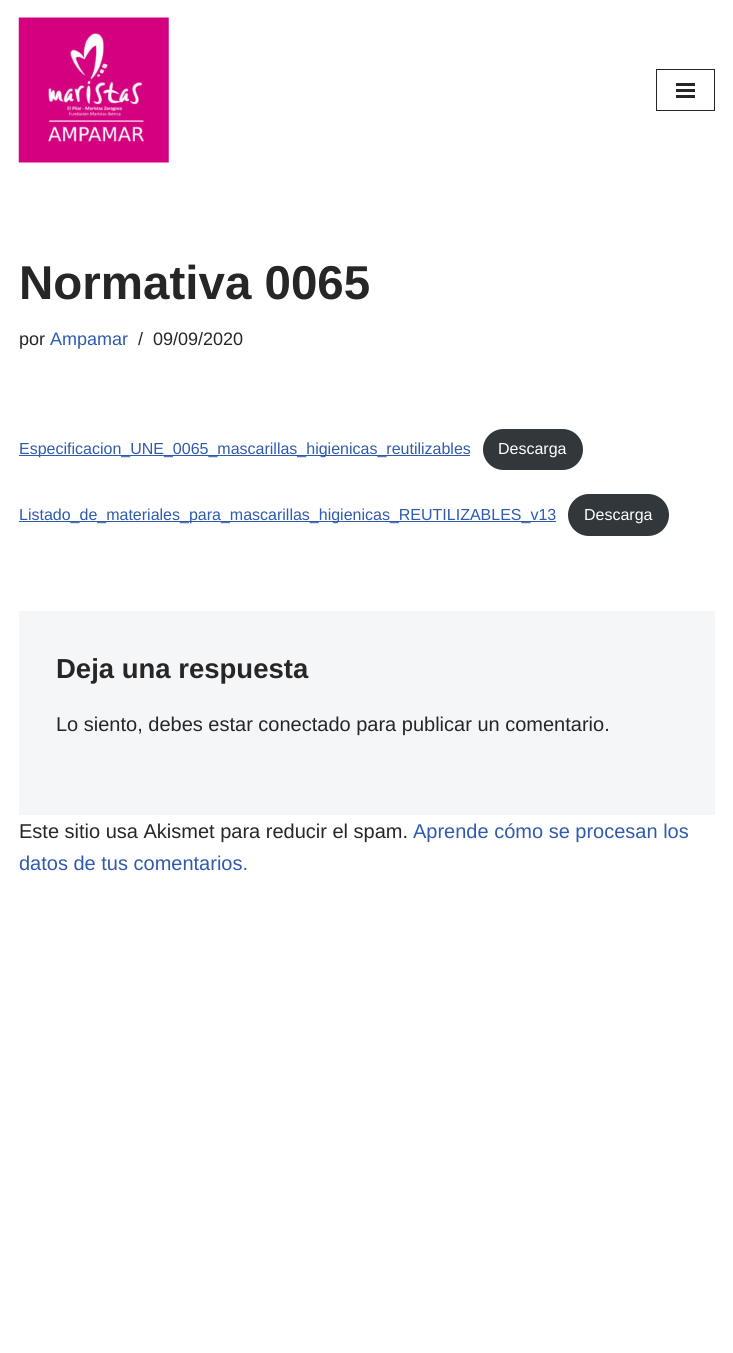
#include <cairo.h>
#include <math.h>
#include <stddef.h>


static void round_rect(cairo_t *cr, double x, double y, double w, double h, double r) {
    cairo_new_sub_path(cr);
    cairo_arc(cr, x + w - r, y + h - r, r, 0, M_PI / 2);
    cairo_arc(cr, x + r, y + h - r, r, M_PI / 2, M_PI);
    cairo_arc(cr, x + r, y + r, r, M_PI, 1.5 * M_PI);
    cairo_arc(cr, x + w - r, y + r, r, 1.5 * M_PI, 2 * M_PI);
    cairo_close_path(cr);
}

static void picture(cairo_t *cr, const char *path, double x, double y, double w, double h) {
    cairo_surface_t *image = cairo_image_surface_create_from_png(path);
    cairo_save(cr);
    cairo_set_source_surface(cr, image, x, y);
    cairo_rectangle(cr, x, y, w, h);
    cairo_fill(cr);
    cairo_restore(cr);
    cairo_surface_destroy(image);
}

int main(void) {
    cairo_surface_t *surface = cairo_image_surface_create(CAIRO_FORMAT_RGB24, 733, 1353);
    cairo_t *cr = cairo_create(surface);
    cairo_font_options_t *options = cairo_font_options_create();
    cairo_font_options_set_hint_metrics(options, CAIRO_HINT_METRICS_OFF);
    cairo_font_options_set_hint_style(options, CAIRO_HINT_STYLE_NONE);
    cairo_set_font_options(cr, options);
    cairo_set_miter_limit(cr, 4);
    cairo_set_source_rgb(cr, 1, 1, 1);
    cairo_paint(cr);
    picture(cr, "img1.png", 18, 17, 151, 146);
    cairo_rectangle(cr, 656.5, 69.5, 58, 41);
    cairo_set_source_rgb(cr, 0.153, 0.149, 0.149);
    cairo_set_line_width(cr, 1);
    cairo_stroke(cr);
    cairo_rectangle(cr, 676, 83, 19, 3);
    cairo_fill(cr);
    cairo_rectangle(cr, 676, 89, 19, 3);
    cairo_fill(cr);
    cairo_rectangle(cr, 676, 95, 19, 3);
    cairo_fill(cr);
    cairo_select_font_face(cr, "Liberation Sans", CAIRO_FONT_SLANT_NORMAL, CAIRO_FONT_WEIGHT_BOLD);
    cairo_set_font_size(cr, 47.5);
    cairo_move_to(cr, 19, 299);
    cairo_show_text(cr, "Normativa 0065");
    cairo_select_font_face(cr, "Liberation Sans", CAIRO_FONT_SLANT_NORMAL, CAIRO_FONT_WEIGHT_NORMAL);
    cairo_set_font_size(cr, 18);
    cairo_move_to(cr, 19, 345);
    cairo_show_text(cr, "por");
    cairo_set_source_rgb(cr, 0.184, 0.353, 0.682);
    cairo_move_to(cr, 50, 345);
    cairo_show_text(cr, "Ampamar");
    cairo_set_source_rgb(cr, 0.153, 0.149, 0.149);
    cairo_move_to(cr, 138, 345);
    cairo_show_text(cr, "/");
    cairo_move_to(cr, 153, 345);
    cairo_show_text(cr, "09/09/2020");
    cairo_set_source_rgb(cr, 0.184, 0.353, 0.682);
    cairo_rectangle(cr, 19, 455, 451, 1);
    cairo_fill(cr);
    cairo_set_font_size(cr, 16);
    cairo_move_to(cr, 19, 454);
    cairo_show_text(cr, "Especificacion_UNE_0065_mascarillas_higienicas_reutilizables");
    cairo_set_source_rgb(cr, 0.196, 0.216, 0.235);
    round_rect(cr, 483, 429, 100, 41, 20.5);
    cairo_fill(cr);
    cairo_set_source_rgb(cr, 1, 1, 1);
    cairo_move_to(cr, 498, 454);
    cairo_show_text(cr, "Descarga");
    cairo_set_source_rgb(cr, 0.184, 0.353, 0.682);
    cairo_rectangle(cr, 19, 521, 537, 1);
    cairo_fill(cr);
    cairo_move_to(cr, 19, 520);
    cairo_show_text(cr, "Listado_de_materiales_para_mascarillas_higienicas_REUTILIZABLES_v13");
    cairo_set_source_rgb(cr, 0.196, 0.216, 0.235);
    round_rect(cr, 568, 494, 101, 42, 21);
    cairo_fill(cr);
    cairo_set_source_rgb(cr, 1, 1, 1);
    cairo_move_to(cr, 584, 520);
    cairo_show_text(cr, "Descarga");
    cairo_set_source_rgb(cr, 0.957, 0.961, 0.969);
    cairo_rectangle(cr, 19, 611, 696, 204);
    cairo_fill(cr);
    cairo_select_font_face(cr, "Liberation Sans", CAIRO_FONT_SLANT_NORMAL, CAIRO_FONT_WEIGHT_BOLD);
    cairo_set_font_size(cr, 27.5);
    cairo_set_source_rgb(cr, 0.153, 0.149, 0.149);
    cairo_move_to(cr, 56, 678);
    cairo_show_text(cr, "Deja una respuesta");
    cairo_select_font_face(cr, "Liberation Sans", CAIRO_FONT_SLANT_NORMAL, CAIRO_FONT_WEIGHT_NORMAL);
    cairo_set_font_size(cr, 20);
    cairo_move_to(cr, 56, 731);
    cairo_show_text(cr, "Lo siento, debes estar conectado para publicar un comentario.");
    cairo_move_to(cr, 19, 838);
    cairo_show_text(cr, "Este sitio usa Akismet para reducir el spam.");
    cairo_set_source_rgb(cr, 0.184, 0.353, 0.682);
    cairo_move_to(cr, 413, 838);
    cairo_show_text(cr, "Aprende cómo se procesan los");
    cairo_move_to(cr, 19, 870);
    cairo_show_text(cr, "datos de tus comentarios.");
    cairo_surface_write_to_png(surface, "page.png");
    cairo_font_options_destroy(options);
    cairo_destroy(cr);
    cairo_surface_destroy(surface);
    return 0;
}
